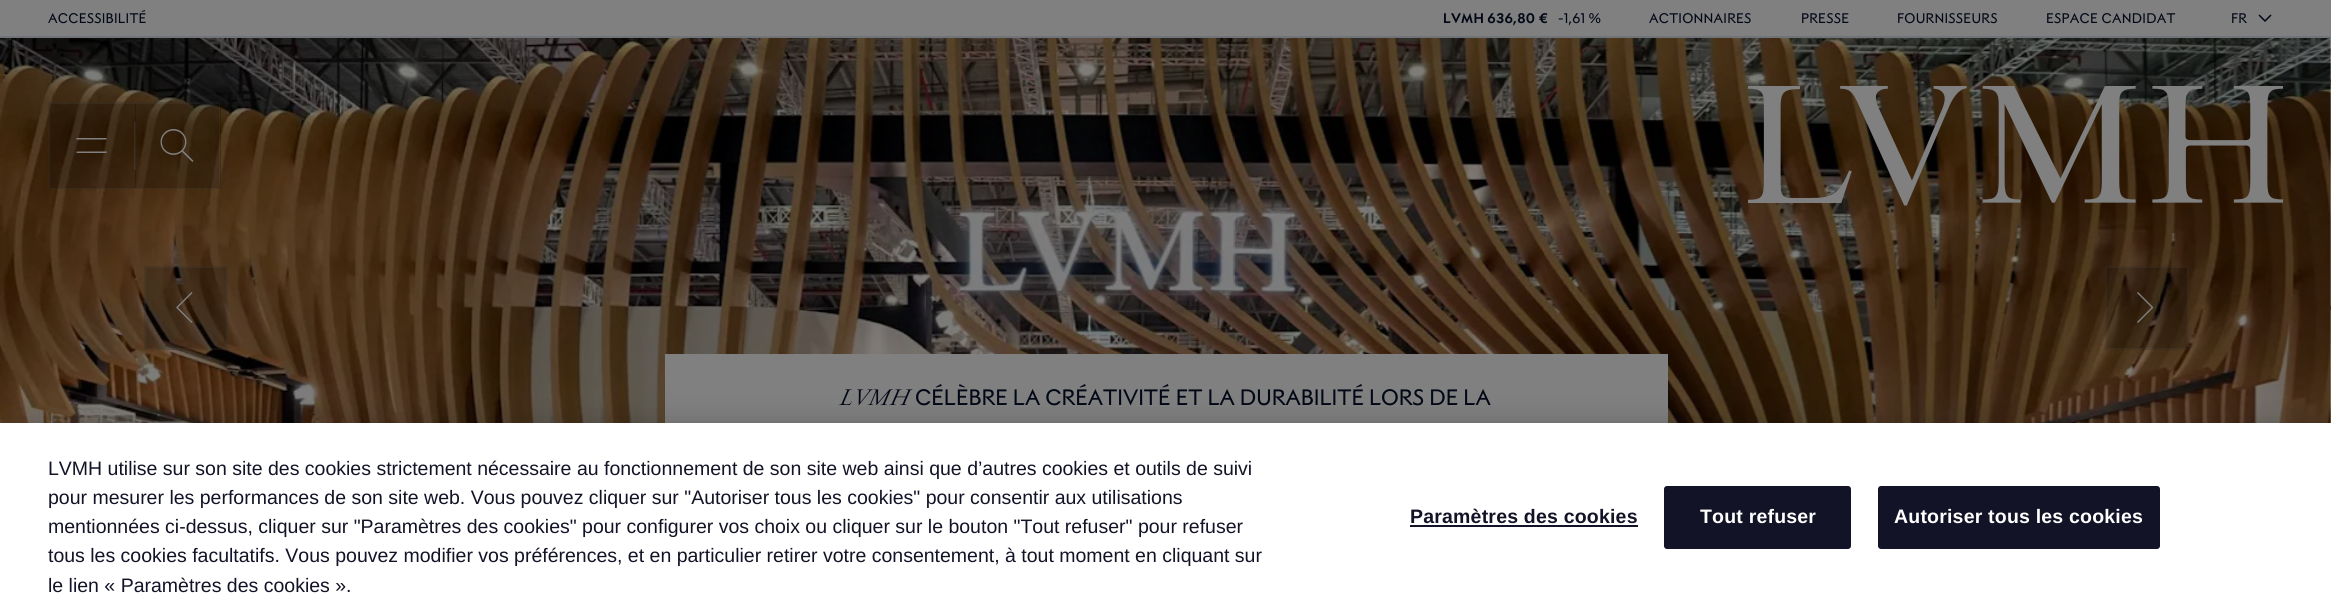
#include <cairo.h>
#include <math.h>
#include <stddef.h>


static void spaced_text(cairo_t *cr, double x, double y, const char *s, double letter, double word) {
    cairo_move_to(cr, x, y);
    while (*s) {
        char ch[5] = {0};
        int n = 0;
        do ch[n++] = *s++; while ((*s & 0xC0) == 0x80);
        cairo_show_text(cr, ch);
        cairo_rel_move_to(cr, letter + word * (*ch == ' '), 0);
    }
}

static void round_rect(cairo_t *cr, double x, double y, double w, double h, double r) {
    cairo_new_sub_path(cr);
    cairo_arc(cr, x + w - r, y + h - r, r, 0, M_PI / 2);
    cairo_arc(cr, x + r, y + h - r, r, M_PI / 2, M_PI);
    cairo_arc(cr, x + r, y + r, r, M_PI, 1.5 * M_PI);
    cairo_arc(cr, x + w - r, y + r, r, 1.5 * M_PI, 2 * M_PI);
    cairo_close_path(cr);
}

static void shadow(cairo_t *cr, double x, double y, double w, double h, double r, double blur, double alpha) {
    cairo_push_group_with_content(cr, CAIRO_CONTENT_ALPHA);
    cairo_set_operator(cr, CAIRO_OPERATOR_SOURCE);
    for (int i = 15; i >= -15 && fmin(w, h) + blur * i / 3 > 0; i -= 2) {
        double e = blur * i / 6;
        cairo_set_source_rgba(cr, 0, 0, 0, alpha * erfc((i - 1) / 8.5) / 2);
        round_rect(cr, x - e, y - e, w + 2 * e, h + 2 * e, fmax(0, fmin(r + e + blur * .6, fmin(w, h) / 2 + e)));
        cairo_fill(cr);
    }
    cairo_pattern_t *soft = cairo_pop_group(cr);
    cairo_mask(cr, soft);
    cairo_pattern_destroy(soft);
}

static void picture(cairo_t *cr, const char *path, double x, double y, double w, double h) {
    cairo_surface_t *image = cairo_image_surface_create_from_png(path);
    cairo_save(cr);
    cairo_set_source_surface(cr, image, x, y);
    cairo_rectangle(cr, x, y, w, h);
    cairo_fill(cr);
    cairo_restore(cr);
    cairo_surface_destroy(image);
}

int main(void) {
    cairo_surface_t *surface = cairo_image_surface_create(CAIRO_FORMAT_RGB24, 2331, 615);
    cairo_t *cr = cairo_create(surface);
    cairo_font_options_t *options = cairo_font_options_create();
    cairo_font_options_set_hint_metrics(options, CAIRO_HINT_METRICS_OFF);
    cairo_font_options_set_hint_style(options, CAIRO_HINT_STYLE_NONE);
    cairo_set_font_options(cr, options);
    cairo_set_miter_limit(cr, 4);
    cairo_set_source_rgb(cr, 1, 1, 1);
    cairo_paint(cr);
    cairo_set_source_rgb(cr, 0.502, 0.502, 0.502);
    cairo_rectangle(cr, 0, 0, 2331, 36);
    cairo_fill(cr);
    cairo_set_source_rgb(cr, 0.439, 0.451, 0.471);
    cairo_rectangle(cr, 0, 36, 2331, 2);
    cairo_fill(cr);
    cairo_select_font_face(cr, "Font", CAIRO_FONT_SLANT_NORMAL, CAIRO_FONT_WEIGHT_NORMAL);
    cairo_set_font_size(cr, 15);
    cairo_set_source_rgb(cr, 0.008, 0.031, 0.086);
    spaced_text(cr, 48, 23, "ACCESSIBILITÉ", 0.25, 0);
    cairo_select_font_face(cr, "Font", CAIRO_FONT_SLANT_NORMAL, CAIRO_FONT_WEIGHT_BOLD);
    spaced_text(cr, 1443, 23, "LVMH 636,80 €", 0.25, 0);
    cairo_select_font_face(cr, "Font", CAIRO_FONT_SLANT_NORMAL, CAIRO_FONT_WEIGHT_NORMAL);
    spaced_text(cr, 1558, 23, "-1,61 %", 0.25, 0);
    spaced_text(cr, 1649, 23, "ACTIONNAIRES", 0.25, 0);
    spaced_text(cr, 1801, 23, "PRESSE", 0.25, 0);
    spaced_text(cr, 1897, 23, "FOURNISSEURS", 0.25, 0);
    spaced_text(cr, 2046, 23, "ESPACE CANDIDAT", 0.25, 0);
    spaced_text(cr, 2231, 23, "FR", 0.25, 0);
    picture(cr, "img1.png", 2258, 14, 14, 8);
    picture(cr, "img5.png", 2330, 78, 1, 234);
    picture(cr, "img4.png", 0, 38, 2331, 385);
    cairo_set_source_rgba(cr, 0, 0, 0, 0.2);
    cairo_rectangle(cr, 48, 102, 86, 87);
    cairo_fill(cr);
    cairo_set_source_rgba(cr, 0.502, 0.502, 0.502, 0.1);
    cairo_new_path(cr);
    cairo_move_to(cr, 48, 102);
    cairo_line_to(cr, 134, 102);
    cairo_line_to(cr, 134, 104);
    cairo_line_to(cr, 50, 104);
    cairo_close_path(cr);
    cairo_fill(cr);
    cairo_new_path(cr);
    cairo_move_to(cr, 134, 189);
    cairo_line_to(cr, 48, 189);
    cairo_line_to(cr, 50, 188);
    cairo_line_to(cr, 134, 188);
    cairo_close_path(cr);
    cairo_fill(cr);
    cairo_new_path(cr);
    cairo_move_to(cr, 48, 189);
    cairo_line_to(cr, 48, 102);
    cairo_line_to(cr, 50, 104);
    cairo_line_to(cr, 50, 188);
    cairo_close_path(cr);
    cairo_fill(cr);
    cairo_set_source_rgb(cr, 0.502, 0.502, 0.502);
    cairo_set_fill_rule(cr, CAIRO_FILL_RULE_EVEN_ODD);
    cairo_new_path(cr);
    cairo_move_to(cr, 76.5, 139.5);
    cairo_line_to(cr, 106.5, 139.5);
    cairo_line_to(cr, 106.5, 138);
    cairo_line_to(cr, 76.5, 138);
    cairo_close_path(cr);
    cairo_move_to(cr, 76.5, 153);
    cairo_line_to(cr, 106.5, 153);
    cairo_line_to(cr, 106.5, 151.5);
    cairo_line_to(cr, 76.5, 151.5);
    cairo_close_path(cr);
    cairo_fill(cr);
    cairo_set_source_rgba(cr, 0, 0, 0, 0.2);
    cairo_rectangle(cr, 134, 102, 2, 87);
    cairo_fill(cr);
    cairo_set_source_rgb(cr, 0.243, 0.18, 0.114);
    cairo_rectangle(cr, 134, 102, 2, 2);
    cairo_fill(cr);
    cairo_set_source_rgba(cr, 0.502, 0.502, 0.502, 0.1);
    cairo_rectangle(cr, 134, 188, 2, 2);
    cairo_fill(cr);
    cairo_set_source_rgba(cr, 0.439, 0.451, 0.471, 0.2);
    cairo_rectangle(cr, 134, 122, 2, 48);
    cairo_fill(cr);
    cairo_set_source_rgba(cr, 0, 0, 0, 0.2);
    cairo_rectangle(cr, 135, 102, 86, 87);
    cairo_fill(cr);
    cairo_set_source_rgba(cr, 0.502, 0.502, 0.502, 0.1);
    cairo_set_fill_rule(cr, CAIRO_FILL_RULE_WINDING);
    cairo_new_path(cr);
    cairo_move_to(cr, 135, 102);
    cairo_line_to(cr, 220, 102);
    cairo_line_to(cr, 219, 104);
    cairo_line_to(cr, 135, 104);
    cairo_close_path(cr);
    cairo_fill(cr);
    cairo_new_path(cr);
    cairo_move_to(cr, 220, 102);
    cairo_line_to(cr, 220, 189);
    cairo_line_to(cr, 219, 188);
    cairo_line_to(cr, 219, 104);
    cairo_close_path(cr);
    cairo_fill(cr);
    cairo_new_path(cr);
    cairo_move_to(cr, 220, 189);
    cairo_line_to(cr, 135, 189);
    cairo_line_to(cr, 135, 188);
    cairo_line_to(cr, 219, 188);
    cairo_close_path(cr);
    cairo_fill(cr);
    picture(cr, "img2.png", 160, 129, 34, 33);
    picture(cr, "img3.png", 1748, 86, 535, 120);
    cairo_set_source_rgba(cr, 0, 0, 0, 0.2);
    cairo_rectangle(cr, 144, 266, 84, 84);
    cairo_fill(cr);
    cairo_rectangle(cr, 145, 267, 82, 82);
    cairo_set_source_rgba(cr, 0.502, 0.502, 0.502, 0.1);
    cairo_stroke(cr);
    cairo_set_source_rgb(cr, 0.502, 0.502, 0.502);
    cairo_set_fill_rule(cr, CAIRO_FILL_RULE_EVEN_ODD);
    cairo_new_path(cr);
    cairo_move_to(cr, 191.5, 323);
    cairo_line_to(cr, 176, 307.5);
    cairo_line_to(cr, 191.5, 292);
    cairo_line_to(cr, 192.5, 293);
    cairo_line_to(cr, 178, 307.5);
    cairo_line_to(cr, 192.5, 322);
    cairo_close_path(cr);
    cairo_fill(cr);
    cairo_set_source_rgba(cr, 0, 0, 0, 0.2);
    cairo_rectangle(cr, 2105, 266, 84, 84);
    cairo_fill(cr);
    cairo_rectangle(cr, 2106, 267, 82, 82);
    cairo_set_source_rgba(cr, 0.502, 0.502, 0.502, 0.1);
    cairo_stroke(cr);
    cairo_set_source_rgb(cr, 0.502, 0.502, 0.502);
    cairo_new_path(cr);
    cairo_move_to(cr, 2138, 292);
    cairo_line_to(cr, 2153.5, 307.5);
    cairo_line_to(cr, 2138, 323);
    cairo_line_to(cr, 2137, 322);
    cairo_line_to(cr, 2151.5, 307.5);
    cairo_line_to(cr, 2137, 293);
    cairo_close_path(cr);
    cairo_fill(cr);
    cairo_rectangle(cr, 665, 354, 1003, 69);
    cairo_fill(cr);
    cairo_select_font_face(cr, "Font", CAIRO_FONT_SLANT_ITALIC, CAIRO_FONT_WEIGHT_NORMAL);
    cairo_set_font_size(cr, 24);
    cairo_set_source_rgb(cr, 0.008, 0.031, 0.086);
    cairo_move_to(cr, 840, 405);
    cairo_show_text(cr, "LVMH");
    cairo_select_font_face(cr, "Font", CAIRO_FONT_SLANT_NORMAL, CAIRO_FONT_WEIGHT_NORMAL);
    cairo_move_to(cr, 915, 405);
    cairo_show_text(cr, "CÉLÈBRE LA CRÉATIVITÉ ET LA DURABILITÉ LORS DE LA");
    cairo_set_source_rgb(cr, 0, 0, 0);
    shadow(cr, 0, 423, 2331, 192, 0, 13.5, 0.2);
    cairo_set_source_rgb(cr, 1, 1, 1);
    cairo_rectangle(cr, 0, 423, 2331, 192);
    cairo_fill(cr);
    cairo_select_font_face(cr, "Liberation Sans", CAIRO_FONT_SLANT_NORMAL, CAIRO_FONT_WEIGHT_NORMAL);
    cairo_set_font_size(cr, 19.5);
    cairo_set_source_rgb(cr, 0.071, 0.078, 0.149);
    cairo_move_to(cr, 48, 475);
    cairo_show_text(cr, "LVMH utilise sur son site des cookies strictement nécessaire au fonctionnement de son site web ainsi que d’autres cookies et outils de suivi");
    cairo_move_to(cr, 48, 504);
    cairo_show_text(cr, "pour mesurer les performances de son site web. Vous pouvez cliquer sur \"Autoriser tous les cookies\" pour consentir aux utilisations");
    cairo_move_to(cr, 48, 533);
    cairo_show_text(cr, "mentionnées ci-dessus, cliquer sur \"Paramètres des cookies\" pour configurer vos choix ou cliquer sur le bouton \"Tout refuser\" pour refuser");
    cairo_move_to(cr, 48, 562);
    cairo_show_text(cr, "tous les cookies facultatifs. Vous pouvez modifier vos préférences, et en particulier retirer votre consentement, à tout moment en cliquant sur");
    cairo_move_to(cr, 48, 592);
    cairo_show_text(cr, "le lien « Paramètres des cookies ».");
    cairo_select_font_face(cr, "Liberation Sans", CAIRO_FONT_SLANT_NORMAL, CAIRO_FONT_WEIGHT_BOLD);
    spaced_text(cr, 1410, 523, "Paramètres des cookies", 0.2, 0);
    cairo_rectangle(cr, 1410, 525, 228, 2);
    cairo_fill(cr);
    round_rect(cr, 1665, 487, 185, 61, 2);
    cairo_fill_preserve(cr);
    cairo_stroke(cr);
    cairo_set_source_rgb(cr, 1, 1, 1);
    spaced_text(cr, 1700, 523, "Tout refuser", 0.2, 0);
    cairo_set_source_rgb(cr, 0.071, 0.078, 0.149);
    round_rect(cr, 1879, 487, 280, 61, 2);
    cairo_fill_preserve(cr);
    cairo_stroke(cr);
    cairo_set_source_rgb(cr, 1, 1, 1);
    spaced_text(cr, 1894, 523, "Autoriser tous les cookies", 0.2, 0);
    cairo_surface_write_to_png(surface, "page.png");
    cairo_font_options_destroy(options);
    cairo_destroy(cr);
    cairo_surface_destroy(surface);
    return 0;
}
